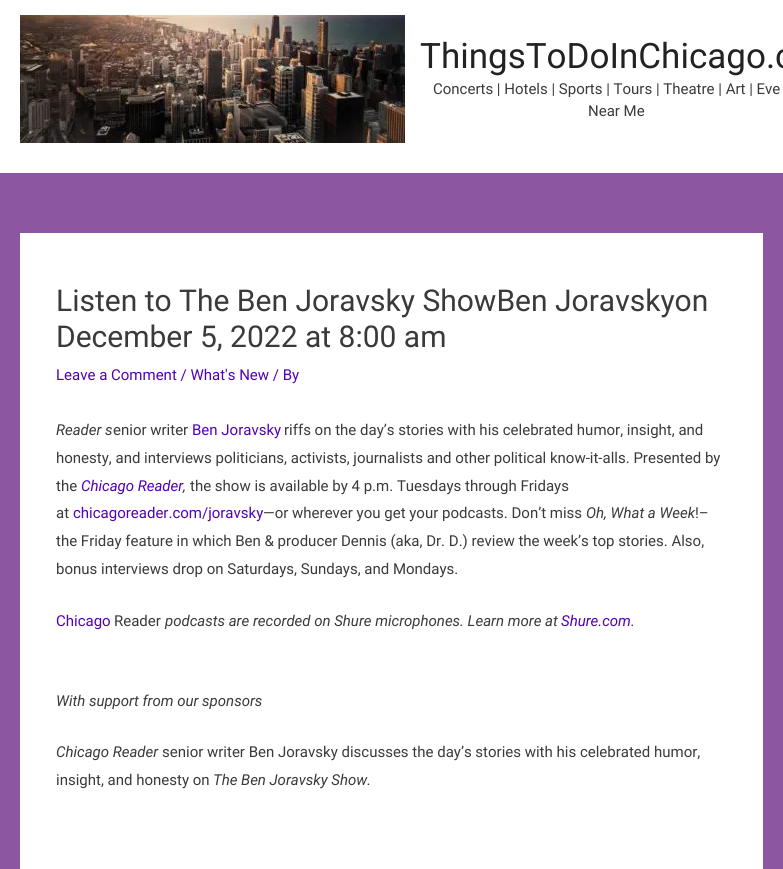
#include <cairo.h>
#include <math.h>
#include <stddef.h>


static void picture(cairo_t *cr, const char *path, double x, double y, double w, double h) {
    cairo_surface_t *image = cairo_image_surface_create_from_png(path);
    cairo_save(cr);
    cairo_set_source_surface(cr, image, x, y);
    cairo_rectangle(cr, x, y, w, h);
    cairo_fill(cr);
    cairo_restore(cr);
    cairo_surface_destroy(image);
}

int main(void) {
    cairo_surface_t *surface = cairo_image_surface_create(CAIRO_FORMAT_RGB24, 783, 869);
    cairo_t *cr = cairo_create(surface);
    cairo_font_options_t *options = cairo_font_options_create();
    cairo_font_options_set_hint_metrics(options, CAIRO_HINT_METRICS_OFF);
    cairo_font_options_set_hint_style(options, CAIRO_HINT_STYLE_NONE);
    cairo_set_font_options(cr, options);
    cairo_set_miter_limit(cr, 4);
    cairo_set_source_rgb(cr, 0.549, 0.337, 0.627);
    cairo_paint(cr);
    cairo_set_source_rgb(cr, 1, 1, 1);
    cairo_rectangle(cr, 0, 0, 783, 173);
    cairo_fill(cr);
    picture(cr, "img1.png", 20, 15, 385, 128);
    cairo_select_font_face(cr, "Roboto", CAIRO_FONT_SLANT_NORMAL, CAIRO_FONT_WEIGHT_NORMAL);
    cairo_set_font_size(cr, 35);
    cairo_set_source_rgb(cr, 0.133, 0.133, 0.133);
    cairo_move_to(cr, 420, 68);
    cairo_show_text(cr, "ThingsToDoInChicago.c");
    cairo_set_font_size(cr, 15);
    cairo_set_source_rgb(cr, 0.227, 0.227, 0.227);
    cairo_move_to(cr, 433, 94);
    cairo_show_text(cr, "Concerts | Hotels | Sports | Tours | Theatre | Art | Eve");
    cairo_move_to(cr, 588, 116);
    cairo_show_text(cr, "Near Me");
    cairo_set_source_rgb(cr, 1, 1, 1);
    cairo_rectangle(cr, 20, 233, 743, 636);
    cairo_fill(cr);
    cairo_set_font_size(cr, 30);
    cairo_set_source_rgb(cr, 0.227, 0.227, 0.227);
    cairo_move_to(cr, 56, 311);
    cairo_show_text(cr, "Listen to The Ben Joravsky ShowBen Joravskyon");
    cairo_move_to(cr, 56, 347);
    cairo_show_text(cr, "December 5, 2022 at 8:00 am");
    cairo_set_font_size(cr, 15);
    cairo_set_source_rgb(cr, 0.322, 0.004, 0.71);
    cairo_move_to(cr, 56, 380);
    cairo_show_text(cr, "Leave a Comment / What's New / By");
    cairo_select_font_face(cr, "Roboto", CAIRO_FONT_SLANT_ITALIC, CAIRO_FONT_WEIGHT_NORMAL);
    cairo_set_source_rgb(cr, 0.227, 0.227, 0.227);
    cairo_move_to(cr, 56, 435);
    cairo_show_text(cr, "Reader s");
    cairo_select_font_face(cr, "Roboto", CAIRO_FONT_SLANT_NORMAL, CAIRO_FONT_WEIGHT_NORMAL);
    cairo_move_to(cr, 113, 435);
    cairo_show_text(cr, "enior writer");
    cairo_set_source_rgb(cr, 0.322, 0.004, 0.71);
    cairo_move_to(cr, 192, 435);
    cairo_show_text(cr, "Ben Joravsky");
    cairo_set_source_rgb(cr, 0.227, 0.227, 0.227);
    cairo_move_to(cr, 284, 435);
    cairo_show_text(cr, "riffs on the day’s stories with his celebrated humor, insight, and");
    cairo_move_to(cr, 56, 463);
    cairo_show_text(cr, "honesty, and interviews politicians, activists, journalists and other political know-it-alls. Presented by");
    cairo_move_to(cr, 56, 491);
    cairo_show_text(cr, "the");
    cairo_select_font_face(cr, "Roboto", CAIRO_FONT_SLANT_ITALIC, CAIRO_FONT_WEIGHT_NORMAL);
    cairo_set_source_rgb(cr, 0.322, 0.004, 0.71);
    cairo_move_to(cr, 81, 491);
    cairo_show_text(cr, "Chicago Reader");
    cairo_select_font_face(cr, "Roboto", CAIRO_FONT_SLANT_NORMAL, CAIRO_FONT_WEIGHT_NORMAL);
    cairo_set_source_rgb(cr, 0.227, 0.227, 0.227);
    cairo_move_to(cr, 190, 491);
    cairo_show_text(cr, "the show is available by 4 p.m. Tuesdays through Fridays");
    cairo_select_font_face(cr, "Roboto", CAIRO_FONT_SLANT_ITALIC, CAIRO_FONT_WEIGHT_NORMAL);
    cairo_move_to(cr, 183, 491);
    cairo_show_text(cr, ",");
    cairo_select_font_face(cr, "Roboto", CAIRO_FONT_SLANT_NORMAL, CAIRO_FONT_WEIGHT_NORMAL);
    cairo_move_to(cr, 56, 518);
    cairo_show_text(cr, "at");
    cairo_set_source_rgb(cr, 0.322, 0.004, 0.71);
    cairo_move_to(cr, 73, 518);
    cairo_show_text(cr, "chicagoreader.com/joravsky");
    cairo_set_source_rgb(cr, 0.227, 0.227, 0.227);
    cairo_move_to(cr, 263, 518);
    cairo_show_text(cr, "—or wherever you get your podcasts. Don’t miss");
    cairo_select_font_face(cr, "Roboto", CAIRO_FONT_SLANT_ITALIC, CAIRO_FONT_WEIGHT_NORMAL);
    cairo_move_to(cr, 586, 518);
    cairo_show_text(cr, "Oh, What a Week");
    cairo_select_font_face(cr, "Roboto", CAIRO_FONT_SLANT_NORMAL, CAIRO_FONT_WEIGHT_NORMAL);
    cairo_move_to(cr, 695, 518);
    cairo_show_text(cr, "!–");
    cairo_move_to(cr, 56, 546);
    cairo_show_text(cr, "the Friday feature in which Ben & producer Dennis (aka, Dr. D.) review the week’s top stories. Also,");
    cairo_move_to(cr, 56, 574);
    cairo_show_text(cr, "bonus interviews drop on Saturdays, Sundays, and Mondays.");
    cairo_set_source_rgb(cr, 0.322, 0.004, 0.71);
    cairo_move_to(cr, 56, 626);
    cairo_show_text(cr, "Chicago");
    cairo_set_source_rgb(cr, 0.227, 0.227, 0.227);
    cairo_move_to(cr, 114, 626);
    cairo_show_text(cr, "Reader");
    cairo_select_font_face(cr, "Roboto", CAIRO_FONT_SLANT_ITALIC, CAIRO_FONT_WEIGHT_NORMAL);
    cairo_move_to(cr, 165, 626);
    cairo_show_text(cr, "podcasts are recorded on Shure microphones. Learn more at");
    cairo_set_source_rgb(cr, 0.322, 0.004, 0.71);
    cairo_move_to(cr, 561, 626);
    cairo_show_text(cr, "Shure.com");
    cairo_set_source_rgb(cr, 0.227, 0.227, 0.227);
    cairo_move_to(cr, 631, 626);
    cairo_show_text(cr, ".");
    cairo_move_to(cr, 56, 706);
    cairo_show_text(cr, "With support from our sponsors");
    cairo_move_to(cr, 56, 757);
    cairo_show_text(cr, "Chicago Reader");
    cairo_select_font_face(cr, "Roboto", CAIRO_FONT_SLANT_NORMAL, CAIRO_FONT_WEIGHT_NORMAL);
    cairo_move_to(cr, 162, 757);
    cairo_show_text(cr, "senior writer Ben Joravsky discusses the day’s stories with his celebrated humor,");
    cairo_move_to(cr, 56, 785);
    cairo_show_text(cr, "insight, and honesty on");
    cairo_select_font_face(cr, "Roboto", CAIRO_FONT_SLANT_ITALIC, CAIRO_FONT_WEIGHT_NORMAL);
    cairo_move_to(cr, 213, 785);
    cairo_show_text(cr, "The Ben Joravsky Show.");
    cairo_surface_write_to_png(surface, "page.png");
    cairo_font_options_destroy(options);
    cairo_destroy(cr);
    cairo_surface_destroy(surface);
    return 0;
}
